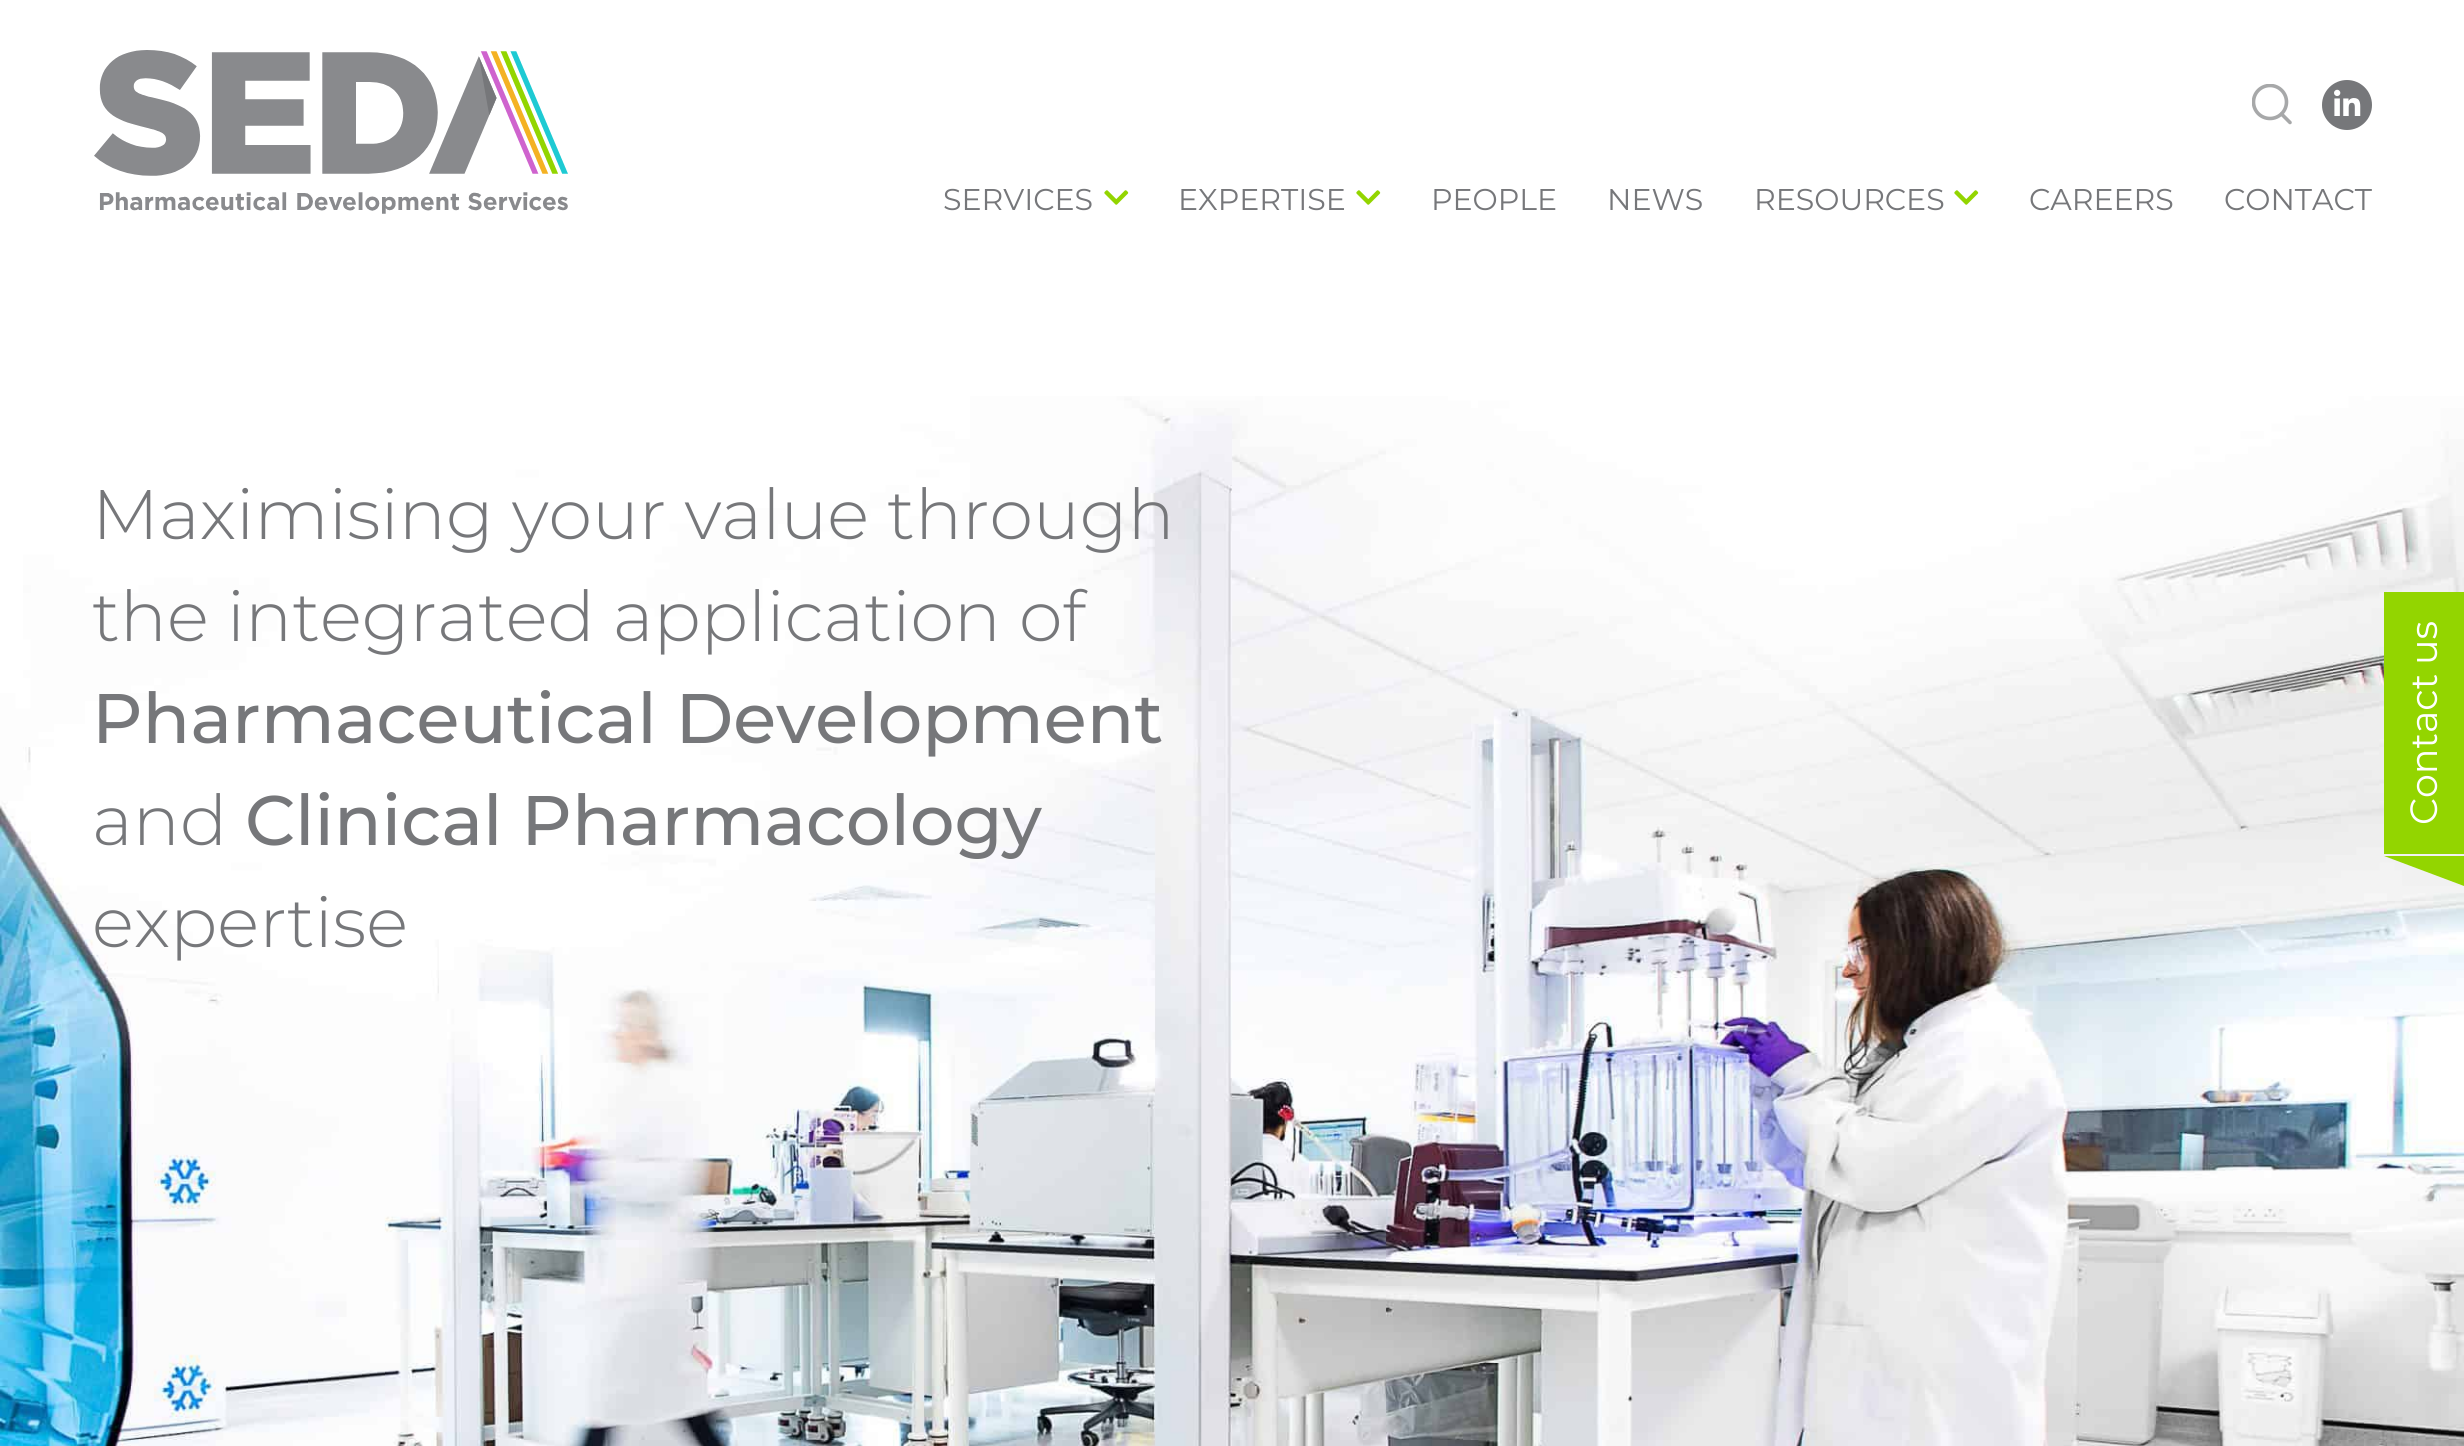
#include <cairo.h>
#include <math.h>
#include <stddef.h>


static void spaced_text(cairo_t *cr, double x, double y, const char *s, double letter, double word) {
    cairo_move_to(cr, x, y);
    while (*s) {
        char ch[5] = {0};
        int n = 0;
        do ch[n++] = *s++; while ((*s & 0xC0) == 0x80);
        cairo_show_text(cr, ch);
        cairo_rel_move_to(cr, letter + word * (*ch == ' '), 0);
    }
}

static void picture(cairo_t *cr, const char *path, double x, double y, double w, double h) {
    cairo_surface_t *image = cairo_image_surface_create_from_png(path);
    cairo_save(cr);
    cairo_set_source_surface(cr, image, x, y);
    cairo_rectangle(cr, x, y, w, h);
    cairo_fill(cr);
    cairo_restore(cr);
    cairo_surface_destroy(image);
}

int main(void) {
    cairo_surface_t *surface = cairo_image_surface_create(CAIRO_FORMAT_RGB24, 2464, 1446);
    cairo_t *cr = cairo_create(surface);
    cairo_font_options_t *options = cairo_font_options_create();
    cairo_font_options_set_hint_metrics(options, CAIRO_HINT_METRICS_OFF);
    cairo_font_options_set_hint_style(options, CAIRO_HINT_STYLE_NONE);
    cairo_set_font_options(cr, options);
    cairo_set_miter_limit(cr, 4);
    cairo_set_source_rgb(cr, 1, 1, 1);
    cairo_paint(cr);
    picture(cr, "img1.png", 0, 396, 2464, 1050);
    cairo_select_font_face(cr, "Montserrat Light", CAIRO_FONT_SLANT_NORMAL, CAIRO_FONT_WEIGHT_NORMAL);
    cairo_set_font_size(cr, 70);
    cairo_set_source_rgb(cr, 0.463, 0.467, 0.478);
    cairo_move_to(cr, 92, 539);
    cairo_show_text(cr, "Maximising your value through");
    cairo_move_to(cr, 92, 641);
    cairo_show_text(cr, "the integrated application of");
    cairo_select_font_face(cr, "Montserrat Medium", CAIRO_FONT_SLANT_NORMAL, CAIRO_FONT_WEIGHT_NORMAL);
    cairo_move_to(cr, 92, 743);
    cairo_show_text(cr, "Pharmaceutical Development");
    cairo_select_font_face(cr, "Montserrat Light", CAIRO_FONT_SLANT_NORMAL, CAIRO_FONT_WEIGHT_NORMAL);
    cairo_move_to(cr, 92, 845);
    cairo_show_text(cr, "and");
    cairo_select_font_face(cr, "Montserrat Medium", CAIRO_FONT_SLANT_NORMAL, CAIRO_FONT_WEIGHT_NORMAL);
    cairo_move_to(cr, 245, 845);
    cairo_show_text(cr, "Clinical Pharmacology");
    cairo_select_font_face(cr, "Montserrat Light", CAIRO_FONT_SLANT_NORMAL, CAIRO_FONT_WEIGHT_NORMAL);
    cairo_move_to(cr, 92, 947);
    cairo_show_text(cr, "expertise");
    picture(cr, "img2.png", 94, 50, 474, 164);
    cairo_save(cr);
    cairo_rectangle(cr, 2252, 84, 40, 40);
    cairo_clip(cr);
    cairo_arc(cr, 2270, 102, 16.5, 0, 2 * M_PI);
    cairo_set_source_rgb(cr, 0.655, 0.659, 0.663);
    cairo_set_line_width(cr, 3.6);
    cairo_stroke(cr);
    cairo_restore(cr);
    cairo_new_path(cr);
    cairo_move_to(cr, 2281.5, 114);
    cairo_line_to(cr, 2290, 122.5);
    cairo_set_source_rgb(cr, 0.655, 0.659, 0.663);
    cairo_set_line_width(cr, 3.6);
    cairo_set_line_cap(cr, CAIRO_LINE_CAP_ROUND);
    cairo_stroke(cr);
    cairo_set_source_rgb(cr, 0.463, 0.467, 0.478);
    cairo_arc(cr, 2347, 105, 25, 0, 2 * M_PI);
    cairo_fill(cr);
    picture(cr, "img3.png", 2334, 89, 27, 27);
    cairo_select_font_face(cr, "Montserrat", CAIRO_FONT_SLANT_NORMAL, CAIRO_FONT_WEIGHT_NORMAL);
    cairo_set_font_size(cr, 30);
    cairo_move_to(cr, 943, 210);
    cairo_show_text(cr, "SERVICES");
    picture(cr, "img4.png", 1104, 190, 25, 15);
    cairo_move_to(cr, 1178, 210);
    cairo_show_text(cr, "EXPERTISE");
    picture(cr, "img4.png", 1356, 190, 25, 15);
    cairo_move_to(cr, 1431, 210);
    cairo_show_text(cr, "PEOPLE");
    cairo_move_to(cr, 1607, 210);
    cairo_show_text(cr, "NEWS");
    cairo_move_to(cr, 1754, 210);
    cairo_show_text(cr, "RESOURCES");
    picture(cr, "img4.png", 1954, 190, 25, 15);
    cairo_move_to(cr, 2029, 210);
    cairo_show_text(cr, "CAREERS");
    cairo_move_to(cr, 2224, 210);
    cairo_show_text(cr, "CONTACT");
    cairo_set_source_rgb(cr, 0.576, 0.835, 0);
    cairo_rectangle(cr, 2384, 592, 80, 262);
    cairo_fill(cr);
    cairo_set_font_size(cr, 38);
    cairo_set_source_rgb(cr, 1, 1, 1);
    cairo_save(cr);
    cairo_translate(cr, 2437, 825);
    cairo_rotate(cr, -90 * M_PI / 180);
    spaced_text(cr, 0, 0, "Contact us", 0, -1);
    cairo_restore(cr);
    cairo_set_source_rgb(cr, 0.576, 0.835, 0);
    cairo_new_path(cr);
    cairo_move_to(cr, 2464, 856);
    cairo_line_to(cr, 2464, 886);
    cairo_line_to(cr, 2384, 856);
    cairo_close_path(cr);
    cairo_fill(cr);
    cairo_surface_write_to_png(surface, "page.png");
    cairo_font_options_destroy(options);
    cairo_destroy(cr);
    cairo_surface_destroy(surface);
    return 0;
}
